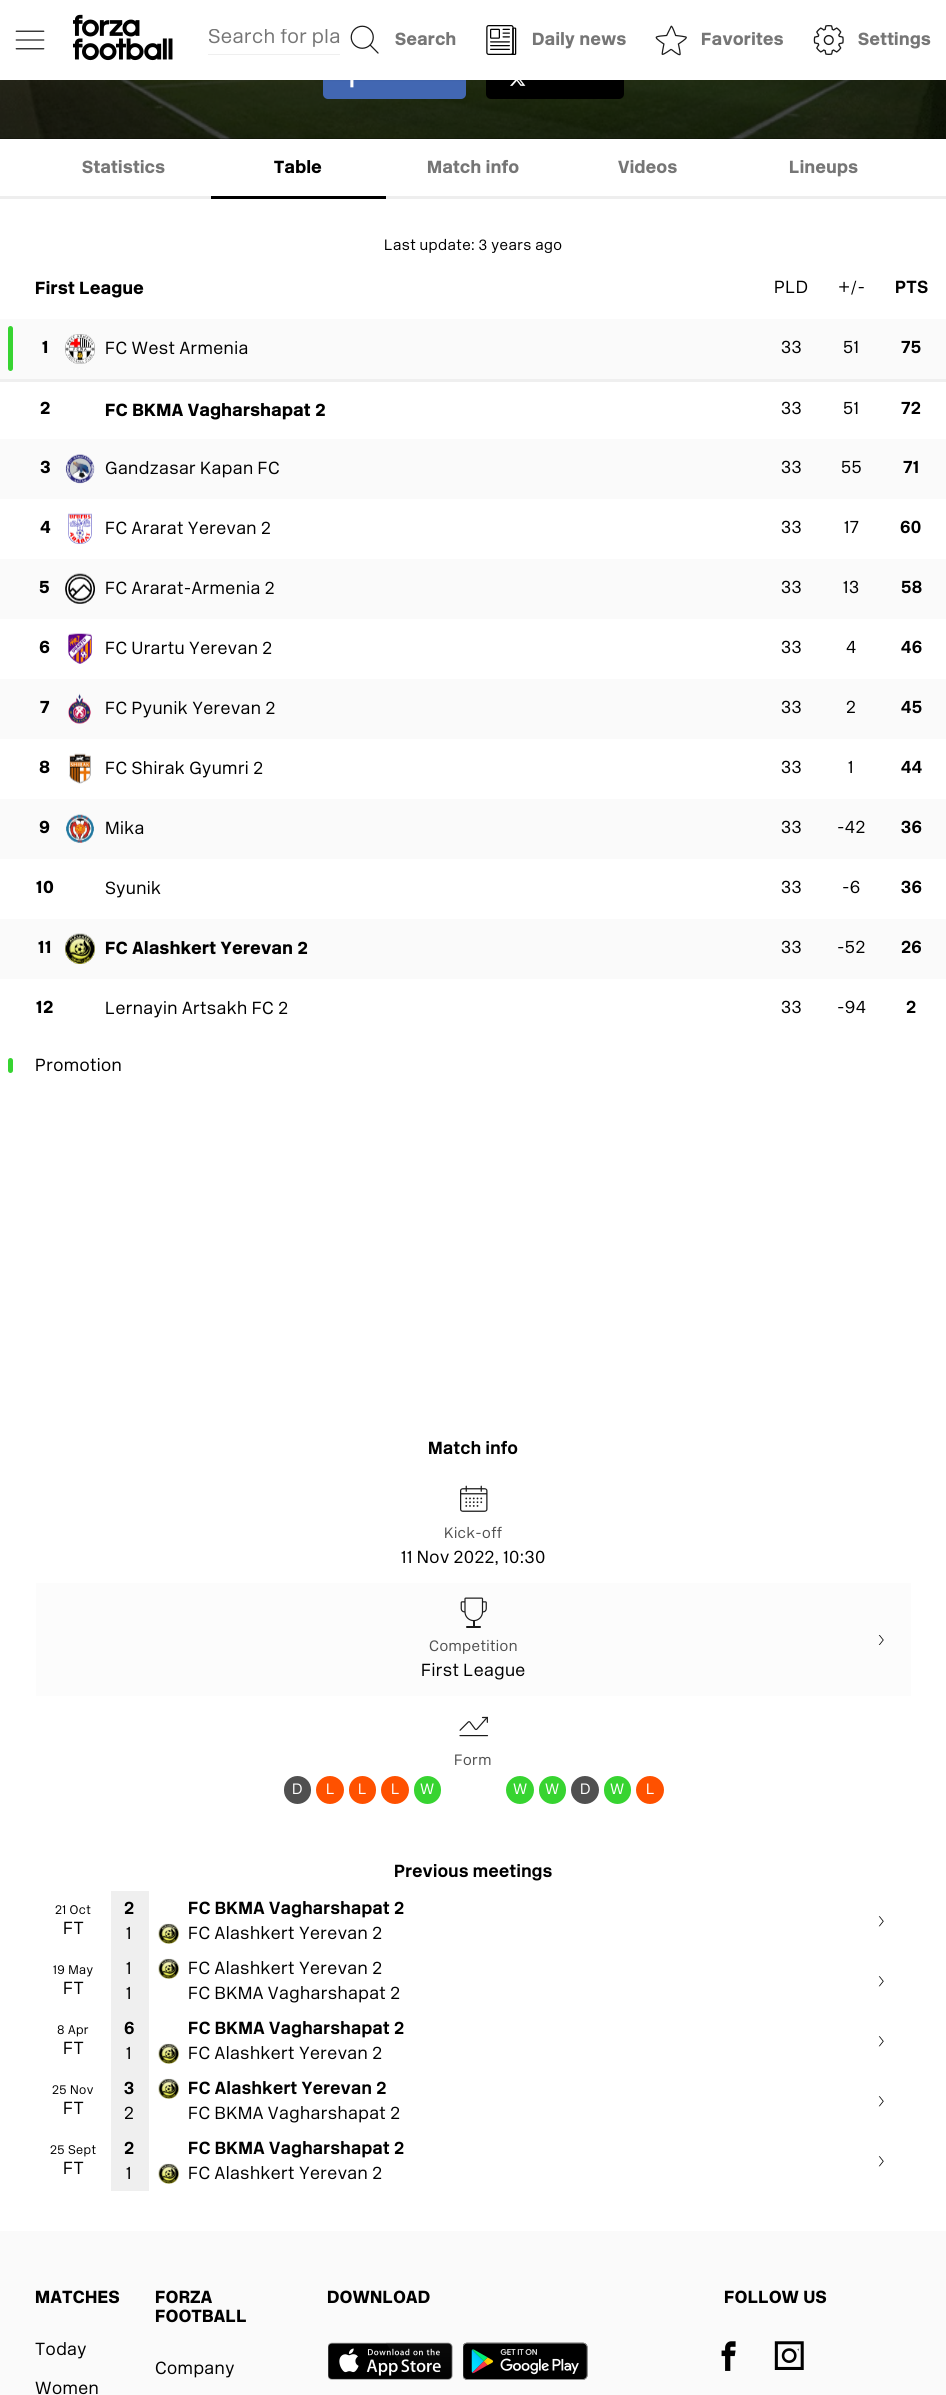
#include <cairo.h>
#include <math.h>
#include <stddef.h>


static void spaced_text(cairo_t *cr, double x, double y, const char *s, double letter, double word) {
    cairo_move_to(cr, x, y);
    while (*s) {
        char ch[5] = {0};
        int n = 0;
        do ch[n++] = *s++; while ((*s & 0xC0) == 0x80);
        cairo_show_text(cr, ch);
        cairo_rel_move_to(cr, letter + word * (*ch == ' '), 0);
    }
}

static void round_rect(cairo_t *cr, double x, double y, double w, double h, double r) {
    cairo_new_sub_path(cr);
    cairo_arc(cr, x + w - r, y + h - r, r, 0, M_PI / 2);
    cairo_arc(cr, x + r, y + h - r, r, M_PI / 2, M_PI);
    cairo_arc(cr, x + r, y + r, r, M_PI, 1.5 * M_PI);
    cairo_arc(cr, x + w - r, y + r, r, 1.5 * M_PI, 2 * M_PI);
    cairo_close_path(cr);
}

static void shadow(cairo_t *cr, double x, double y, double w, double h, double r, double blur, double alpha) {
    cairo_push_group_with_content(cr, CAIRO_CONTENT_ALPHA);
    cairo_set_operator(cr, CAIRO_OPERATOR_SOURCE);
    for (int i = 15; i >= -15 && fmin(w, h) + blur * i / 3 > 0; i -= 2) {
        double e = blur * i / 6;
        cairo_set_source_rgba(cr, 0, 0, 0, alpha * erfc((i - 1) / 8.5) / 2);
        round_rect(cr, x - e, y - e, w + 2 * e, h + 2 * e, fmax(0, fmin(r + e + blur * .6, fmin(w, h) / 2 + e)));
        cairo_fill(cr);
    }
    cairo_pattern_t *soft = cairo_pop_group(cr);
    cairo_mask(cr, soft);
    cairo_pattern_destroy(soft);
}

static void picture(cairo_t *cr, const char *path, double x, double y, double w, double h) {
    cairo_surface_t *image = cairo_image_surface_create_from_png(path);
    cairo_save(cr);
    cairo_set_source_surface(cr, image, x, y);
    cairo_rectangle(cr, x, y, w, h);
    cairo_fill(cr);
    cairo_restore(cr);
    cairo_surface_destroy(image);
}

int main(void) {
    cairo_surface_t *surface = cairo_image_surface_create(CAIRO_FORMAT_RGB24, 946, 2395);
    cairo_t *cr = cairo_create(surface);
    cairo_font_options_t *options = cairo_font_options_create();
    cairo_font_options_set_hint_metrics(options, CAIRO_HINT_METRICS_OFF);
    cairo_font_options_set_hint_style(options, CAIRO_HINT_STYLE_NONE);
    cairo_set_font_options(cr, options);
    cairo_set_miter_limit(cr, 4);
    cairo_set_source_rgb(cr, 1, 1, 1);
    cairo_paint(cr);
    cairo_set_source_rgb(cr, 0, 0, 0);
    cairo_rectangle(cr, 0, 80, 946, 59);
    cairo_fill(cr);
    picture(cr, "img9.png", 0, 80, 946, 59);
    cairo_set_source_rgb(cr, 0.259, 0.404, 0.698);
    round_rect(cr, 323, 59, 143, 40, 5);
    cairo_fill(cr);
    picture(cr, "img7.png", 350, 80, 4, 8);
    cairo_set_source_rgb(cr, 0, 0, 0);
    round_rect(cr, 486, 59, 138, 40, 5);
    cairo_fill(cr);
    picture(cr, "img8.png", 510, 80, 16, 6);
    cairo_set_source_rgb(cr, 0, 0, 0);
    shadow(cr, 0, 0, 946, 80, 0, 1, 0.1);
    cairo_set_source_rgb(cr, 1, 1, 1);
    cairo_rectangle(cr, 0, 0, 946, 80);
    cairo_fill(cr);
    picture(cr, "img1.png", 15, 30, 30, 20);
    picture(cr, "img2.png", 73, 14, 100, 47);
    cairo_set_source_rgb(cr, 0.937, 0.937, 0.937);
    cairo_rectangle(cr, 208, 54, 132, 1);
    cairo_fill(cr);
    cairo_save(cr);
    cairo_rectangle(cr, 208, 29, 132, 20);
    cairo_clip(cr);
    cairo_select_font_face(cr, "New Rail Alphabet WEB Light", CAIRO_FONT_SLANT_NORMAL, CAIRO_FONT_WEIGHT_NORMAL);
    cairo_set_font_size(cr, 20);
    cairo_set_source_rgb(cr, 0.463, 0.463, 0.463);
    spaced_text(cr, 208, 43, "Search for pla", 0.4, 0);
    cairo_restore(cr);
    picture(cr, "img3.png", 350, 25, 29, 29);
    cairo_select_font_face(cr, "New Rail Alphabet WEB Black", CAIRO_FONT_SLANT_NORMAL, CAIRO_FONT_WEIGHT_NORMAL);
    cairo_set_font_size(cr, 17.5);
    cairo_set_source_rgb(cr, 0.463, 0.463, 0.463);
    spaced_text(cr, 395, 45, "Search", 0.4, 0);
    picture(cr, "img4.png", 486, 25, 31, 30);
    spaced_text(cr, 532, 45, "Daily news", 0.4, 0);
    picture(cr, "img5.png", 655, 25, 32, 31);
    spaced_text(cr, 701, 45, "Favorites", 0.4, 0);
    picture(cr, "img6.png", 813, 25, 31, 30);
    spaced_text(cr, 858, 45, "Settings", 0.4, 0);
    spaced_text(cr, 82, 173, "Statistics", 0.4, 0);
    cairo_set_source_rgb(cr, 0, 0, 0);
    spaced_text(cr, 274, 173, "Table", 0.4, 0);
    cairo_set_source_rgb(cr, 0.933, 0.933, 0.933);
    cairo_rectangle(cr, 0, 196, 946, 3);
    cairo_fill(cr);
    cairo_set_source_rgb(cr, 0, 0, 0);
    cairo_rectangle(cr, 211, 196, 175, 3);
    cairo_fill(cr);
    cairo_set_source_rgb(cr, 0.463, 0.463, 0.463);
    spaced_text(cr, 427, 173, "Match info", 0.4, 0);
    spaced_text(cr, 618, 173, "Videos", 0.4, 0);
    spaced_text(cr, 789, 173, "Lineups", 0.4, 0);
    cairo_select_font_face(cr, "New Rail Alphabet WEB Light", CAIRO_FONT_SLANT_NORMAL, CAIRO_FONT_WEIGHT_NORMAL);
    cairo_set_font_size(cr, 15);
    cairo_set_source_rgb(cr, 0, 0, 0);
    spaced_text(cr, 384, 250, "Last update: 3 years ago", 0.4, 0);
    cairo_select_font_face(cr, "New Rail Alphabet WEB Black", CAIRO_FONT_SLANT_NORMAL, CAIRO_FONT_WEIGHT_NORMAL);
    cairo_set_font_size(cr, 17.5);
    spaced_text(cr, 35, 294, "First League", 0.4, 0);
    cairo_select_font_face(cr, "New Rail Alphabet WEB Light", CAIRO_FONT_SLANT_NORMAL, CAIRO_FONT_WEIGHT_NORMAL);
    spaced_text(cr, 774, 293, "PLD", 0.4, 0);
    spaced_text(cr, 838, 293, "+/-", 0.4, 0);
    cairo_select_font_face(cr, "New Rail Alphabet WEB", CAIRO_FONT_SLANT_NORMAL, CAIRO_FONT_WEIGHT_BOLD);
    spaced_text(cr, 895, 293, "PTS", 0.4, 0);
    cairo_set_source_rgb(cr, 0.98, 0.98, 0.98);
    cairo_rectangle(cr, 0, 319, 946, 60);
    cairo_fill(cr);
    cairo_set_source_rgb(cr, 0.216, 0.831, 0.192);
    round_rect(cr, 8, 326, 5, 45, 2.5);
    cairo_fill(cr);
    cairo_select_font_face(cr, "New Rail Alphabet WEB Black", CAIRO_FONT_SLANT_NORMAL, CAIRO_FONT_WEIGHT_NORMAL);
    cairo_set_source_rgb(cr, 0, 0, 0);
    spaced_text(cr, 42, 353, "1", 0.4, 0);
    picture(cr, "img10.png", 65, 334, 30, 30);
    cairo_select_font_face(cr, "New Rail Alphabet WEB Light", CAIRO_FONT_SLANT_NORMAL, CAIRO_FONT_WEIGHT_NORMAL);
    spaced_text(cr, 105, 354, "FC West Armenia", 0.4, 0);
    spaced_text(cr, 781, 353, "33", 0.4, 0);
    spaced_text(cr, 843, 353, "51", 0.4, 0);
    cairo_select_font_face(cr, "New Rail Alphabet WEB", CAIRO_FONT_SLANT_NORMAL, CAIRO_FONT_WEIGHT_BOLD);
    spaced_text(cr, 901, 353, "75", 0.4, 0);
    cairo_set_source_rgb(cr, 0.937, 0.937, 0.937);
    cairo_rectangle(cr, 0, 379, 946, 3);
    cairo_fill(cr);
    cairo_select_font_face(cr, "New Rail Alphabet WEB Black", CAIRO_FONT_SLANT_NORMAL, CAIRO_FONT_WEIGHT_NORMAL);
    cairo_set_source_rgb(cr, 0, 0, 0);
    spaced_text(cr, 40, 414, "2", 0.4, 0);
    spaced_text(cr, 105, 416, "FC BKMA Vagharshapat 2", 0.4, 0);
    cairo_select_font_face(cr, "New Rail Alphabet WEB Light", CAIRO_FONT_SLANT_NORMAL, CAIRO_FONT_WEIGHT_NORMAL);
    spaced_text(cr, 781, 414, "33", 0.4, 0);
    spaced_text(cr, 843, 414, "51", 0.4, 0);
    cairo_select_font_face(cr, "New Rail Alphabet WEB", CAIRO_FONT_SLANT_NORMAL, CAIRO_FONT_WEIGHT_BOLD);
    spaced_text(cr, 901, 414, "72", 0.4, 0);
    cairo_set_source_rgb(cr, 0.98, 0.98, 0.98);
    cairo_rectangle(cr, 0, 439, 946, 60);
    cairo_fill(cr);
    cairo_select_font_face(cr, "New Rail Alphabet WEB Black", CAIRO_FONT_SLANT_NORMAL, CAIRO_FONT_WEIGHT_NORMAL);
    cairo_set_source_rgb(cr, 0, 0, 0);
    spaced_text(cr, 40, 473, "3", 0.4, 0);
    picture(cr, "img11.png", 65, 454, 30, 30);
    cairo_select_font_face(cr, "New Rail Alphabet WEB Light", CAIRO_FONT_SLANT_NORMAL, CAIRO_FONT_WEIGHT_NORMAL);
    spaced_text(cr, 105, 474, "Gandzasar Kapan FC", 0.4, 0);
    spaced_text(cr, 781, 473, "33", 0.4, 0);
    spaced_text(cr, 841, 473, "55", 0.4, 0);
    cairo_select_font_face(cr, "New Rail Alphabet WEB", CAIRO_FONT_SLANT_NORMAL, CAIRO_FONT_WEIGHT_BOLD);
    spaced_text(cr, 903, 473, "71", 0.4, 0);
    cairo_select_font_face(cr, "New Rail Alphabet WEB Black", CAIRO_FONT_SLANT_NORMAL, CAIRO_FONT_WEIGHT_NORMAL);
    spaced_text(cr, 40, 533, "4", 0.4, 0);
    picture(cr, "img12.png", 68, 513, 24, 31);
    cairo_select_font_face(cr, "New Rail Alphabet WEB Light", CAIRO_FONT_SLANT_NORMAL, CAIRO_FONT_WEIGHT_NORMAL);
    spaced_text(cr, 105, 534, "FC Ararat Yerevan 2", 0.4, 0);
    spaced_text(cr, 781, 533, "33", 0.4, 0);
    spaced_text(cr, 844, 533, "17", 0.4, 0);
    cairo_select_font_face(cr, "New Rail Alphabet WEB", CAIRO_FONT_SLANT_NORMAL, CAIRO_FONT_WEIGHT_BOLD);
    spaced_text(cr, 900, 533, "60", 0.4, 0);
    cairo_set_source_rgb(cr, 0.98, 0.98, 0.98);
    cairo_rectangle(cr, 0, 559, 946, 60);
    cairo_fill(cr);
    cairo_select_font_face(cr, "New Rail Alphabet WEB Black", CAIRO_FONT_SLANT_NORMAL, CAIRO_FONT_WEIGHT_NORMAL);
    cairo_set_source_rgb(cr, 0, 0, 0);
    spaced_text(cr, 39, 593, "5", 0.4, 0);
    picture(cr, "img13.png", 65, 573, 30, 31);
    cairo_select_font_face(cr, "New Rail Alphabet WEB Light", CAIRO_FONT_SLANT_NORMAL, CAIRO_FONT_WEIGHT_NORMAL);
    spaced_text(cr, 105, 594, "FC Ararat-Armenia 2", 0.4, 0);
    spaced_text(cr, 781, 593, "33", 0.4, 0);
    spaced_text(cr, 843, 593, "13", 0.4, 0);
    cairo_select_font_face(cr, "New Rail Alphabet WEB", CAIRO_FONT_SLANT_NORMAL, CAIRO_FONT_WEIGHT_BOLD);
    spaced_text(cr, 901, 593, "58", 0.4, 0);
    cairo_select_font_face(cr, "New Rail Alphabet WEB Black", CAIRO_FONT_SLANT_NORMAL, CAIRO_FONT_WEIGHT_NORMAL);
    spaced_text(cr, 39, 653, "6", 0.4, 0);
    picture(cr, "img14.png", 68, 633, 24, 31);
    cairo_select_font_face(cr, "New Rail Alphabet WEB Light", CAIRO_FONT_SLANT_NORMAL, CAIRO_FONT_WEIGHT_NORMAL);
    spaced_text(cr, 105, 654, "FC Urartu Yerevan 2", 0.4, 0);
    spaced_text(cr, 781, 653, "33", 0.4, 0);
    spaced_text(cr, 846, 653, "4", 0.4, 0);
    cairo_select_font_face(cr, "New Rail Alphabet WEB", CAIRO_FONT_SLANT_NORMAL, CAIRO_FONT_WEIGHT_BOLD);
    spaced_text(cr, 901, 653, "46", 0.4, 0);
    cairo_set_source_rgb(cr, 0.98, 0.98, 0.98);
    cairo_rectangle(cr, 0, 679, 946, 60);
    cairo_fill(cr);
    cairo_select_font_face(cr, "New Rail Alphabet WEB Black", CAIRO_FONT_SLANT_NORMAL, CAIRO_FONT_WEIGHT_NORMAL);
    cairo_set_source_rgb(cr, 0, 0, 0);
    spaced_text(cr, 40, 713, "7", 0.4, 0);
    picture(cr, "img15.png", 68, 693, 23, 31);
    cairo_select_font_face(cr, "New Rail Alphabet WEB Light", CAIRO_FONT_SLANT_NORMAL, CAIRO_FONT_WEIGHT_NORMAL);
    spaced_text(cr, 105, 714, "FC Pyunik Yerevan 2", 0.4, 0);
    spaced_text(cr, 781, 713, "33", 0.4, 0);
    spaced_text(cr, 846, 713, "2", 0.4, 0);
    cairo_select_font_face(cr, "New Rail Alphabet WEB", CAIRO_FONT_SLANT_NORMAL, CAIRO_FONT_WEIGHT_BOLD);
    spaced_text(cr, 901, 713, "45", 0.4, 0);
    cairo_select_font_face(cr, "New Rail Alphabet WEB Black", CAIRO_FONT_SLANT_NORMAL, CAIRO_FONT_WEIGHT_NORMAL);
    spaced_text(cr, 39, 773, "8", 0.4, 0);
    picture(cr, "img16.png", 69, 753, 22, 31);
    cairo_select_font_face(cr, "New Rail Alphabet WEB Light", CAIRO_FONT_SLANT_NORMAL, CAIRO_FONT_WEIGHT_NORMAL);
    spaced_text(cr, 105, 774, "FC Shirak Gyumri 2", 0.4, 0);
    spaced_text(cr, 781, 773, "33", 0.4, 0);
    spaced_text(cr, 848, 773, "1", 0.4, 0);
    cairo_select_font_face(cr, "New Rail Alphabet WEB", CAIRO_FONT_SLANT_NORMAL, CAIRO_FONT_WEIGHT_BOLD);
    spaced_text(cr, 901, 773, "44", 0.4, 0);
    cairo_set_source_rgb(cr, 0.98, 0.98, 0.98);
    cairo_rectangle(cr, 0, 799, 946, 60);
    cairo_fill(cr);
    cairo_select_font_face(cr, "New Rail Alphabet WEB Black", CAIRO_FONT_SLANT_NORMAL, CAIRO_FONT_WEIGHT_NORMAL);
    cairo_set_source_rgb(cr, 0, 0, 0);
    spaced_text(cr, 39, 833, "9", 0.4, 0);
    picture(cr, "img17.png", 66, 814, 28, 29);
    cairo_select_font_face(cr, "New Rail Alphabet WEB Light", CAIRO_FONT_SLANT_NORMAL, CAIRO_FONT_WEIGHT_NORMAL);
    spaced_text(cr, 105, 834, "Mika", 0.4, 0);
    spaced_text(cr, 781, 833, "33", 0.4, 0);
    spaced_text(cr, 837, 833, "-42", 0.4, 0);
    cairo_select_font_face(cr, "New Rail Alphabet WEB", CAIRO_FONT_SLANT_NORMAL, CAIRO_FONT_WEIGHT_BOLD);
    spaced_text(cr, 901, 833, "36", 0.4, 0);
    cairo_select_font_face(cr, "New Rail Alphabet WEB Black", CAIRO_FONT_SLANT_NORMAL, CAIRO_FONT_WEIGHT_NORMAL);
    spaced_text(cr, 36, 893, "10", 0.4, 0);
    cairo_select_font_face(cr, "New Rail Alphabet WEB Light", CAIRO_FONT_SLANT_NORMAL, CAIRO_FONT_WEIGHT_NORMAL);
    spaced_text(cr, 105, 894, "Syunik", 0.4, 0);
    spaced_text(cr, 781, 893, "33", 0.4, 0);
    spaced_text(cr, 842, 893, "-6", 0.4, 0);
    cairo_select_font_face(cr, "New Rail Alphabet WEB", CAIRO_FONT_SLANT_NORMAL, CAIRO_FONT_WEIGHT_BOLD);
    spaced_text(cr, 901, 893, "36", 0.4, 0);
    cairo_set_source_rgb(cr, 0.98, 0.98, 0.98);
    cairo_rectangle(cr, 0, 919, 946, 60);
    cairo_fill(cr);
    cairo_select_font_face(cr, "New Rail Alphabet WEB Black", CAIRO_FONT_SLANT_NORMAL, CAIRO_FONT_WEIGHT_NORMAL);
    cairo_set_source_rgb(cr, 0, 0, 0);
    spaced_text(cr, 38, 953, "11", 0.4, 0);
    picture(cr, "img18.png", 65, 933, 30, 31);
    spaced_text(cr, 105, 954, "FC Alashkert Yerevan 2", 0.4, 0);
    cairo_select_font_face(cr, "New Rail Alphabet WEB Light", CAIRO_FONT_SLANT_NORMAL, CAIRO_FONT_WEIGHT_NORMAL);
    spaced_text(cr, 781, 953, "33", 0.4, 0);
    spaced_text(cr, 837, 953, "-52", 0.4, 0);
    cairo_select_font_face(cr, "New Rail Alphabet WEB", CAIRO_FONT_SLANT_NORMAL, CAIRO_FONT_WEIGHT_BOLD);
    spaced_text(cr, 901, 953, "26", 0.4, 0);
    cairo_select_font_face(cr, "New Rail Alphabet WEB Black", CAIRO_FONT_SLANT_NORMAL, CAIRO_FONT_WEIGHT_NORMAL);
    spaced_text(cr, 36, 1013, "12", 0.4, 0);
    cairo_select_font_face(cr, "New Rail Alphabet WEB Light", CAIRO_FONT_SLANT_NORMAL, CAIRO_FONT_WEIGHT_NORMAL);
    spaced_text(cr, 105, 1014, "Lernayin Artsakh FC 2", 0.4, 0);
    spaced_text(cr, 781, 1013, "33", 0.4, 0);
    spaced_text(cr, 837, 1013, "-94", 0.4, 0);
    cairo_select_font_face(cr, "New Rail Alphabet WEB", CAIRO_FONT_SLANT_NORMAL, CAIRO_FONT_WEIGHT_BOLD);
    spaced_text(cr, 906, 1013, "2", 0.4, 0);
    cairo_set_source_rgb(cr, 0.216, 0.831, 0.192);
    round_rect(cr, 8, 1058, 5, 15, 2.5);
    cairo_fill(cr);
    cairo_select_font_face(cr, "New Rail Alphabet WEB Light", CAIRO_FONT_SLANT_NORMAL, CAIRO_FONT_WEIGHT_NORMAL);
    cairo_set_source_rgb(cr, 0, 0, 0);
    spaced_text(cr, 35, 1071, "Promotion", 0.4, 0);
    cairo_select_font_face(cr, "New Rail Alphabet WEB", CAIRO_FONT_SLANT_NORMAL, CAIRO_FONT_WEIGHT_BOLD);
    spaced_text(cr, 428, 1454, "Match info", 0.4, 0);
    picture(cr, "img19.png", 460, 1485, 28, 27);
    cairo_select_font_face(cr, "New Rail Alphabet WEB Light", CAIRO_FONT_SLANT_NORMAL, CAIRO_FONT_WEIGHT_NORMAL);
    cairo_set_font_size(cr, 15);
    cairo_set_source_rgb(cr, 0.314, 0.314, 0.314);
    spaced_text(cr, 444, 1538, "Kick-off", 0.4, 0);
    cairo_set_font_size(cr, 17.5);
    cairo_set_source_rgb(cr, 0, 0, 0);
    spaced_text(cr, 401, 1563, "11 Nov 2022, 10:30", 0.4, 0);
    cairo_set_source_rgb(cr, 0.988, 0.988, 0.988);
    cairo_rectangle(cr, 36, 1583, 875, 113);
    cairo_fill(cr);
    picture(cr, "img20.png", 460, 1597, 27, 31);
    cairo_set_font_size(cr, 15);
    cairo_set_source_rgb(cr, 0.314, 0.314, 0.314);
    spaced_text(cr, 429, 1651, "Competition", 0.4, 0);
    picture(cr, "img21.png", 878, 1635, 6, 10);
    cairo_set_font_size(cr, 17.5);
    cairo_set_source_rgb(cr, 0, 0, 0);
    spaced_text(cr, 421, 1676, "First League", 0.4, 0);
    picture(cr, "img22.png", 459, 1716, 30, 21);
    cairo_set_font_size(cr, 15);
    cairo_set_source_rgb(cr, 0.314, 0.314, 0.314);
    spaced_text(cr, 454, 1765, "Form", 0.4, 0);
    round_rect(cr, 284, 1776, 27, 28, 13.5);
    cairo_fill(cr);
    cairo_set_source_rgb(cr, 1, 1, 1);
    spaced_text(cr, 292, 1794, "D", 0.4, 0);
    cairo_set_source_rgb(cr, 1, 0.318, 0);
    cairo_new_path(cr);
    cairo_arc(cr, 330, 1790, 14, 0, 2 * M_PI);
    cairo_fill(cr);
    cairo_set_source_rgb(cr, 1, 1, 1);
    spaced_text(cr, 326, 1794, "L", 0.4, 0);
    cairo_set_source_rgb(cr, 1, 0.318, 0);
    round_rect(cr, 349, 1776, 27, 28, 13.5);
    cairo_fill(cr);
    cairo_set_source_rgb(cr, 1, 1, 1);
    spaced_text(cr, 358, 1794, "L", 0.4, 0);
    cairo_set_source_rgb(cr, 1, 0.318, 0);
    cairo_new_path(cr);
    cairo_arc(cr, 395, 1790, 14, 0, 2 * M_PI);
    cairo_fill(cr);
    cairo_set_source_rgb(cr, 1, 1, 1);
    spaced_text(cr, 391, 1794, "L", 0.4, 0);
    cairo_set_source_rgb(cr, 0.216, 0.831, 0.192);
    round_rect(cr, 414, 1776, 27, 28, 13.5);
    cairo_fill(cr);
    cairo_set_source_rgb(cr, 1, 1, 1);
    spaced_text(cr, 420, 1794, "W", 0.4, 0);
    cairo_set_source_rgb(cr, 0.216, 0.831, 0.192);
    cairo_new_path(cr);
    cairo_arc(cr, 520, 1790, 14, 0, 2 * M_PI);
    cairo_fill(cr);
    cairo_set_source_rgb(cr, 1, 1, 1);
    spaced_text(cr, 513, 1794, "W", 0.4, 0);
    cairo_set_source_rgb(cr, 0.216, 0.831, 0.192);
    round_rect(cr, 539, 1776, 27, 28, 13.5);
    cairo_fill(cr);
    cairo_set_source_rgb(cr, 1, 1, 1);
    spaced_text(cr, 545, 1794, "W", 0.4, 0);
    cairo_set_source_rgb(cr, 0.314, 0.314, 0.314);
    cairo_new_path(cr);
    cairo_arc(cr, 585, 1790, 14, 0, 2 * M_PI);
    cairo_fill(cr);
    cairo_set_source_rgb(cr, 1, 1, 1);
    spaced_text(cr, 580, 1794, "D", 0.4, 0);
    cairo_set_source_rgb(cr, 0.216, 0.831, 0.192);
    round_rect(cr, 604, 1776, 27, 28, 13.5);
    cairo_fill(cr);
    cairo_set_source_rgb(cr, 1, 1, 1);
    spaced_text(cr, 610, 1794, "W", 0.4, 0);
    cairo_set_source_rgb(cr, 1, 0.318, 0);
    cairo_new_path(cr);
    cairo_arc(cr, 650, 1790, 14, 0, 2 * M_PI);
    cairo_fill(cr);
    cairo_set_source_rgb(cr, 1, 1, 1);
    spaced_text(cr, 646, 1794, "L", 0.4, 0);
    cairo_select_font_face(cr, "New Rail Alphabet WEB", CAIRO_FONT_SLANT_NORMAL, CAIRO_FONT_WEIGHT_BOLD);
    cairo_set_font_size(cr, 17.5);
    cairo_set_source_rgb(cr, 0, 0, 0);
    spaced_text(cr, 394, 1877, "Previous meetings", 0.4, 0);
    cairo_select_font_face(cr, "New Rail Alphabet WEB Light", CAIRO_FONT_SLANT_NORMAL, CAIRO_FONT_WEIGHT_NORMAL);
    cairo_set_font_size(cr, 12.5);
    spaced_text(cr, 55, 1914, "21 Oct", 0.4, 0);
    cairo_set_font_size(cr, 17.5);
    spaced_text(cr, 63, 1934, "FT", 0.4, 0);
    cairo_set_source_rgb(cr, 0.937, 0.937, 0.937);
    cairo_rectangle(cr, 111, 1891, 38, 300);
    cairo_fill(cr);
    cairo_select_font_face(cr, "New Rail Alphabet WEB", CAIRO_FONT_SLANT_NORMAL, CAIRO_FONT_WEIGHT_BOLD);
    cairo_set_source_rgb(cr, 0, 0, 0);
    spaced_text(cr, 124, 1914, "2", 0.4, 0);
    cairo_select_font_face(cr, "New Rail Alphabet WEB Light", CAIRO_FONT_SLANT_NORMAL, CAIRO_FONT_WEIGHT_NORMAL);
    spaced_text(cr, 126, 1939, "1", 0.4, 0);
    cairo_select_font_face(cr, "New Rail Alphabet WEB", CAIRO_FONT_SLANT_NORMAL, CAIRO_FONT_WEIGHT_BOLD);
    spaced_text(cr, 188, 1914, "FC BKMA Vagharshapat 2", 0.4, 0);
    picture(cr, "img23.png", 158, 1923, 21, 21);
    cairo_select_font_face(cr, "New Rail Alphabet WEB Light", CAIRO_FONT_SLANT_NORMAL, CAIRO_FONT_WEIGHT_NORMAL);
    spaced_text(cr, 188, 1939, "FC Alashkert Yerevan 2", 0.4, 0);
    picture(cr, "img24.png", 878, 1916, 6, 11);
    cairo_set_font_size(cr, 12.5);
    spaced_text(cr, 53, 1974, "19 May", 0.4, 0);
    cairo_set_font_size(cr, 17.5);
    spaced_text(cr, 63, 1994, "FT", 0.4, 0);
    spaced_text(cr, 126, 1974, "1", 0.4, 0);
    spaced_text(cr, 126, 1999, "1", 0.4, 0);
    picture(cr, "img23.png", 158, 1958, 21, 21);
    spaced_text(cr, 188, 1974, "FC Alashkert Yerevan 2", 0.4, 0);
    spaced_text(cr, 188, 1999, "FC BKMA Vagharshapat 2", 0.4, 0);
    picture(cr, "img24.png", 878, 1976, 6, 11);
    cairo_set_font_size(cr, 12.5);
    spaced_text(cr, 57, 2034, "8 Apr", 0.4, 0);
    cairo_set_font_size(cr, 17.5);
    spaced_text(cr, 63, 2054, "FT", 0.4, 0);
    cairo_select_font_face(cr, "New Rail Alphabet WEB", CAIRO_FONT_SLANT_NORMAL, CAIRO_FONT_WEIGHT_BOLD);
    spaced_text(cr, 124, 2034, "6", 0.4, 0);
    cairo_select_font_face(cr, "New Rail Alphabet WEB Light", CAIRO_FONT_SLANT_NORMAL, CAIRO_FONT_WEIGHT_NORMAL);
    spaced_text(cr, 126, 2059, "1", 0.4, 0);
    cairo_select_font_face(cr, "New Rail Alphabet WEB", CAIRO_FONT_SLANT_NORMAL, CAIRO_FONT_WEIGHT_BOLD);
    spaced_text(cr, 188, 2034, "FC BKMA Vagharshapat 2", 0.4, 0);
    picture(cr, "img23.png", 158, 2043, 21, 21);
    cairo_select_font_face(cr, "New Rail Alphabet WEB Light", CAIRO_FONT_SLANT_NORMAL, CAIRO_FONT_WEIGHT_NORMAL);
    spaced_text(cr, 188, 2059, "FC Alashkert Yerevan 2", 0.4, 0);
    picture(cr, "img24.png", 878, 2036, 6, 11);
    cairo_set_font_size(cr, 12.5);
    spaced_text(cr, 52, 2094, "25 Nov", 0.4, 0);
    cairo_set_font_size(cr, 17.5);
    spaced_text(cr, 63, 2114, "FT", 0.4, 0);
    cairo_select_font_face(cr, "New Rail Alphabet WEB", CAIRO_FONT_SLANT_NORMAL, CAIRO_FONT_WEIGHT_BOLD);
    spaced_text(cr, 124, 2094, "3", 0.4, 0);
    cairo_select_font_face(cr, "New Rail Alphabet WEB Light", CAIRO_FONT_SLANT_NORMAL, CAIRO_FONT_WEIGHT_NORMAL);
    spaced_text(cr, 124, 2119, "2", 0.4, 0);
    picture(cr, "img23.png", 158, 2078, 21, 21);
    cairo_select_font_face(cr, "New Rail Alphabet WEB", CAIRO_FONT_SLANT_NORMAL, CAIRO_FONT_WEIGHT_BOLD);
    spaced_text(cr, 188, 2094, "FC Alashkert Yerevan 2", 0.4, 0);
    cairo_select_font_face(cr, "New Rail Alphabet WEB Light", CAIRO_FONT_SLANT_NORMAL, CAIRO_FONT_WEIGHT_NORMAL);
    spaced_text(cr, 188, 2119, "FC BKMA Vagharshapat 2", 0.4, 0);
    picture(cr, "img24.png", 878, 2096, 6, 11);
    cairo_set_font_size(cr, 12.5);
    spaced_text(cr, 50, 2154, "25 Sept", 0.4, 0);
    cairo_set_font_size(cr, 17.5);
    spaced_text(cr, 63, 2174, "FT", 0.4, 0);
    cairo_select_font_face(cr, "New Rail Alphabet WEB", CAIRO_FONT_SLANT_NORMAL, CAIRO_FONT_WEIGHT_BOLD);
    spaced_text(cr, 124, 2154, "2", 0.4, 0);
    cairo_select_font_face(cr, "New Rail Alphabet WEB Light", CAIRO_FONT_SLANT_NORMAL, CAIRO_FONT_WEIGHT_NORMAL);
    spaced_text(cr, 126, 2179, "1", 0.4, 0);
    cairo_select_font_face(cr, "New Rail Alphabet WEB", CAIRO_FONT_SLANT_NORMAL, CAIRO_FONT_WEIGHT_BOLD);
    spaced_text(cr, 188, 2154, "FC BKMA Vagharshapat 2", 0.4, 0);
    picture(cr, "img23.png", 158, 2163, 21, 21);
    cairo_select_font_face(cr, "New Rail Alphabet WEB Light", CAIRO_FONT_SLANT_NORMAL, CAIRO_FONT_WEIGHT_NORMAL);
    spaced_text(cr, 188, 2179, "FC Alashkert Yerevan 2", 0.4, 0);
    picture(cr, "img24.png", 878, 2156, 6, 11);
    cairo_set_source_rgb(cr, 0.98, 0.98, 0.98);
    cairo_rectangle(cr, 0, 2231, 946, 164);
    cairo_fill(cr);
    cairo_select_font_face(cr, "New Rail Alphabet WEB Black", CAIRO_FONT_SLANT_NORMAL, CAIRO_FONT_WEIGHT_NORMAL);
    cairo_set_source_rgb(cr, 0, 0, 0);
    spaced_text(cr, 35, 2303, "MATCHES", 0.4, 0);
    cairo_select_font_face(cr, "New Rail Alphabet WEB Light", CAIRO_FONT_SLANT_NORMAL, CAIRO_FONT_WEIGHT_NORMAL);
    spaced_text(cr, 35, 2355, "Today", 0.4, 0);
    spaced_text(cr, 35, 2394, "Women", 0.4, 0);
    cairo_select_font_face(cr, "New Rail Alphabet WEB Black", CAIRO_FONT_SLANT_NORMAL, CAIRO_FONT_WEIGHT_NORMAL);
    spaced_text(cr, 155, 2303, "FORZA", 0.4, 0);
    spaced_text(cr, 155, 2322, "FOOTBALL", 0.4, 0);
    cairo_select_font_face(cr, "New Rail Alphabet WEB Light", CAIRO_FONT_SLANT_NORMAL, CAIRO_FONT_WEIGHT_NORMAL);
    spaced_text(cr, 155, 2374, "Company", 0.4, 0);
    cairo_select_font_face(cr, "New Rail Alphabet WEB Black", CAIRO_FONT_SLANT_NORMAL, CAIRO_FONT_WEIGHT_NORMAL);
    spaced_text(cr, 327, 2303, "DOWNLOAD", 0.4, 0);
    picture(cr, "img25.png", 328, 2342, 125, 38);
    picture(cr, "img26.png", 463, 2342, 125, 38);
    spaced_text(cr, 724, 2303, "FOLLOW US", 0.4, 0);
    picture(cr, "img27.png", 721, 2341, 15, 30);
    picture(cr, "img28.png", 774, 2341, 30, 29);
    cairo_surface_write_to_png(surface, "page.png");
    cairo_font_options_destroy(options);
    cairo_destroy(cr);
    cairo_surface_destroy(surface);
    return 0;
}
